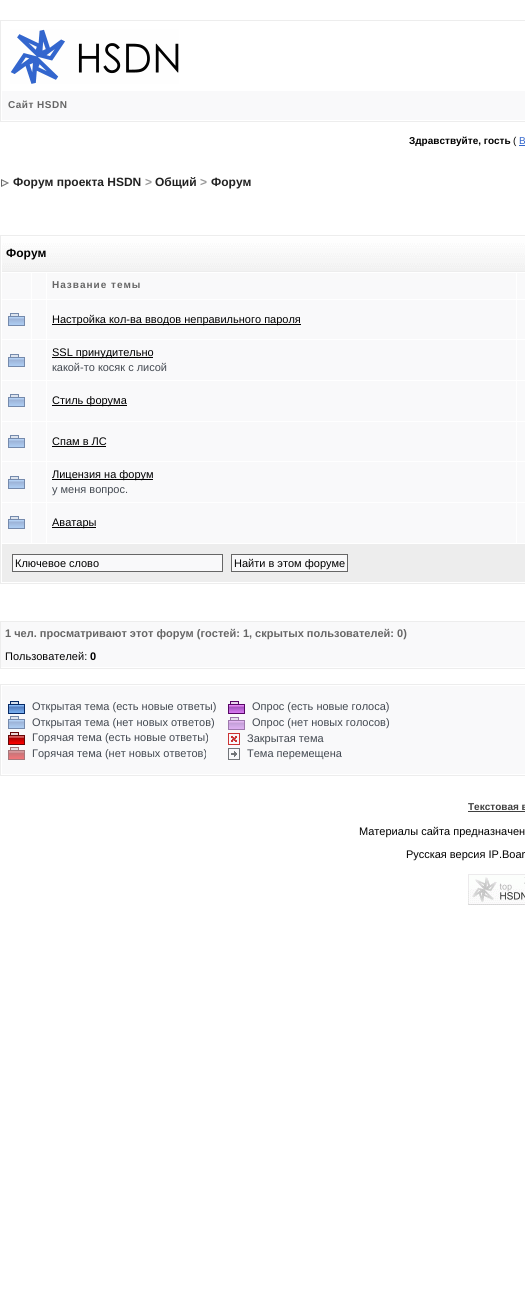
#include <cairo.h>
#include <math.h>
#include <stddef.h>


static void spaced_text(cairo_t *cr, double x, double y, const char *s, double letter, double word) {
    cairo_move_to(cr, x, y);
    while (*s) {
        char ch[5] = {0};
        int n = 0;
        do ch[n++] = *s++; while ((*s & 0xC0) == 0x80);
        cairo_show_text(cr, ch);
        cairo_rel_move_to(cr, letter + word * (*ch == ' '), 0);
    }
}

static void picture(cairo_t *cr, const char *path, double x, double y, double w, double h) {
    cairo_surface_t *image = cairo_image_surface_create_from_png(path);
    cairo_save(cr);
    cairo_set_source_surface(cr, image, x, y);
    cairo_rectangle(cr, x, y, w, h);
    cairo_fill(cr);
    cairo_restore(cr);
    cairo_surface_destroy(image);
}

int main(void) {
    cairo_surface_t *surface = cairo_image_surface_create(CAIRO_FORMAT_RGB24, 525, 1305);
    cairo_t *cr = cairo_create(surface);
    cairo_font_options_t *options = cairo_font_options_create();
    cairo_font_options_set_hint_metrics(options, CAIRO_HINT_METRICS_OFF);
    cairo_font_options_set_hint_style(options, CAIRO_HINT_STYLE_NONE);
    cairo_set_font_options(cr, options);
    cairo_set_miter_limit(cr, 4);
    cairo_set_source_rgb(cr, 1, 1, 1);
    cairo_paint(cr);
    cairo_rectangle(cr, 0.5, 20.5, 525, 101);
    cairo_set_source_rgb(cr, 0.929, 0.929, 0.929);
    cairo_set_line_width(cr, 1);
    cairo_stroke(cr);
    picture(cr, "img1.png", 10, 29, 169, 55);
    cairo_set_source_rgb(cr, 0.973, 0.973, 0.98);
    cairo_rectangle(cr, 2, 91, 523, 29);
    cairo_fill(cr);
    cairo_select_font_face(cr, "Liberation Sans", CAIRO_FONT_SLANT_NORMAL, CAIRO_FONT_WEIGHT_BOLD);
    cairo_set_font_size(cr, 10);
    cairo_set_source_rgb(cr, 0.4, 0.4, 0.4);
    spaced_text(cr, 8, 108, "Сайт HSDN", 0.5, 0);
    cairo_set_source_rgb(cr, 0, 0, 0);
    cairo_move_to(cr, 409, 144);
    cairo_show_text(cr, "Здравствуйте, гость");
    cairo_select_font_face(cr, "Liberation Sans", CAIRO_FONT_SLANT_NORMAL, CAIRO_FONT_WEIGHT_NORMAL);
    cairo_move_to(cr, 513, 144);
    cairo_show_text(cr, "(");
    cairo_set_source_rgb(cr, 0.2, 0.4, 0.8);
    cairo_move_to(cr, 519, 144);
    cairo_show_text(cr, "В");
    cairo_rectangle(cr, 519, 145, 6, 1);
    cairo_fill(cr);
    picture(cr, "img2.png", 1, 179, 8, 8);
    cairo_select_font_face(cr, "Liberation Sans", CAIRO_FONT_SLANT_NORMAL, CAIRO_FONT_WEIGHT_BOLD);
    cairo_set_font_size(cr, 12);
    cairo_set_source_rgb(cr, 0.133, 0.133, 0.133);
    cairo_move_to(cr, 13, 186);
    cairo_show_text(cr, "Форум проекта HSDN");
    cairo_set_source_rgb(cr, 0.6, 0.6, 0.6);
    cairo_move_to(cr, 145, 186);
    cairo_show_text(cr, ">");
    cairo_set_source_rgb(cr, 0.133, 0.133, 0.133);
    cairo_move_to(cr, 155, 186);
    cairo_show_text(cr, "Общий");
    cairo_set_source_rgb(cr, 0.6, 0.6, 0.6);
    cairo_move_to(cr, 200, 186);
    cairo_show_text(cr, ">");
    cairo_set_source_rgb(cr, 0.133, 0.133, 0.133);
    cairo_move_to(cr, 211, 186);
    cairo_show_text(cr, "Форум");
    cairo_rectangle(cr, 0.5, 235.5, 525, 348);
    cairo_set_source_rgb(cr, 0.929, 0.929, 0.929);
    cairo_stroke(cr);
    picture(cr, "img3.png", 2, 237, 523, 34);
    cairo_rectangle(cr, 1, 271, 524, 1);
    cairo_fill(cr);
    cairo_set_source_rgb(cr, 1, 1, 1);
    cairo_rectangle(cr, 1, 271, 1, 1);
    cairo_fill(cr);
    cairo_set_source_rgb(cr, 0, 0, 0);
    cairo_move_to(cr, 6, 257);
    cairo_show_text(cr, "Форум");
    cairo_set_source_rgb(cr, 0.973, 0.973, 0.98);
    cairo_rectangle(cr, 2, 273, 29, 26);
    cairo_fill(cr);
    cairo_rectangle(cr, 32, 273, 14, 26);
    cairo_fill(cr);
    cairo_rectangle(cr, 47, 273, 469, 26);
    cairo_fill(cr);
    cairo_set_font_size(cr, 10);
    cairo_set_source_rgb(cr, 0.4, 0.4, 0.4);
    spaced_text(cr, 52, 288, "Название темы", 1, 0);
    cairo_set_source_rgb(cr, 0.973, 0.973, 0.98);
    cairo_rectangle(cr, 517, 273, 8, 26);
    cairo_fill(cr);
    cairo_rectangle(cr, 2, 300, 29, 39);
    cairo_fill(cr);
    picture(cr, "img4.png", 8, 313, 17, 13);
    cairo_rectangle(cr, 32, 300, 14, 39);
    cairo_fill(cr);
    cairo_rectangle(cr, 47, 300, 469, 39);
    cairo_fill(cr);
    cairo_set_source_rgb(cr, 0, 0, 0);
    cairo_rectangle(cr, 52, 324, 249, 1);
    cairo_fill(cr);
    cairo_select_font_face(cr, "Liberation Sans", CAIRO_FONT_SLANT_NORMAL, CAIRO_FONT_WEIGHT_NORMAL);
    cairo_set_font_size(cr, 11);
    cairo_move_to(cr, 52, 323);
    cairo_show_text(cr, "Настройка кол-ва вводов неправильного пароля");
    cairo_set_source_rgb(cr, 0.973, 0.973, 0.98);
    cairo_rectangle(cr, 517, 300, 8, 39);
    cairo_fill(cr);
    cairo_rectangle(cr, 2, 340, 29, 40);
    cairo_fill(cr);
    picture(cr, "img4.png", 8, 354, 17, 13);
    cairo_rectangle(cr, 32, 340, 14, 40);
    cairo_fill(cr);
    cairo_rectangle(cr, 47, 340, 469, 40);
    cairo_fill(cr);
    cairo_set_source_rgb(cr, 0, 0, 0);
    cairo_rectangle(cr, 52, 357, 101, 1);
    cairo_fill(cr);
    cairo_move_to(cr, 52, 356);
    cairo_show_text(cr, "SSL принудительно");
    cairo_set_source_rgb(cr, 0.263, 0.286, 0.318);
    cairo_move_to(cr, 52, 371);
    cairo_show_text(cr, "какой-то косяк с лисой");
    cairo_set_source_rgb(cr, 0.973, 0.973, 0.98);
    cairo_rectangle(cr, 517, 340, 8, 40);
    cairo_fill(cr);
    cairo_rectangle(cr, 2, 381, 29, 40);
    cairo_fill(cr);
    picture(cr, "img4.png", 8, 394, 17, 13);
    cairo_rectangle(cr, 32, 381, 14, 40);
    cairo_fill(cr);
    cairo_rectangle(cr, 47, 381, 469, 40);
    cairo_fill(cr);
    cairo_set_source_rgb(cr, 0, 0, 0);
    cairo_rectangle(cr, 52, 405, 75, 1);
    cairo_fill(cr);
    cairo_move_to(cr, 52, 404);
    cairo_show_text(cr, "Стиль форума");
    cairo_set_source_rgb(cr, 0.973, 0.973, 0.98);
    cairo_rectangle(cr, 517, 381, 8, 40);
    cairo_fill(cr);
    cairo_rectangle(cr, 2, 422, 29, 39);
    cairo_fill(cr);
    picture(cr, "img4.png", 8, 435, 17, 13);
    cairo_rectangle(cr, 32, 422, 14, 39);
    cairo_fill(cr);
    cairo_rectangle(cr, 47, 422, 469, 39);
    cairo_fill(cr);
    cairo_set_source_rgb(cr, 0, 0, 0);
    cairo_move_to(cr, 52, 445);
    cairo_show_text(cr, "Спам в ЛС");
    cairo_rectangle(cr, 52, 446, 54, 1);
    cairo_fill(cr);
    cairo_set_source_rgb(cr, 0.973, 0.973, 0.98);
    cairo_rectangle(cr, 517, 422, 8, 39);
    cairo_fill(cr);
    cairo_rectangle(cr, 2, 462, 29, 40);
    cairo_fill(cr);
    picture(cr, "img4.png", 8, 476, 17, 13);
    cairo_rectangle(cr, 32, 462, 14, 40);
    cairo_fill(cr);
    cairo_rectangle(cr, 47, 462, 469, 40);
    cairo_fill(cr);
    cairo_set_source_rgb(cr, 0, 0, 0);
    cairo_rectangle(cr, 52, 479, 101, 1);
    cairo_fill(cr);
    cairo_move_to(cr, 52, 478);
    cairo_show_text(cr, "Лицензия на форум");
    cairo_set_source_rgb(cr, 0.263, 0.286, 0.318);
    cairo_move_to(cr, 52, 493);
    cairo_show_text(cr, "у меня вопрос.");
    cairo_set_source_rgb(cr, 0.973, 0.973, 0.98);
    cairo_rectangle(cr, 517, 462, 8, 40);
    cairo_fill(cr);
    cairo_rectangle(cr, 2, 503, 29, 40);
    cairo_fill(cr);
    picture(cr, "img4.png", 8, 516, 17, 13);
    cairo_rectangle(cr, 32, 503, 14, 40);
    cairo_fill(cr);
    cairo_rectangle(cr, 47, 503, 469, 40);
    cairo_fill(cr);
    cairo_set_source_rgb(cr, 0, 0, 0);
    cairo_rectangle(cr, 52, 527, 44, 1);
    cairo_fill(cr);
    cairo_move_to(cr, 52, 526);
    cairo_show_text(cr, "Аватары");
    cairo_set_source_rgb(cr, 0.973, 0.973, 0.98);
    cairo_rectangle(cr, 517, 503, 8, 40);
    cairo_fill(cr);
    cairo_set_source_rgb(cr, 0.929, 0.929, 0.929);
    cairo_rectangle(cr, 2, 544, 523, 38);
    cairo_fill(cr);
    cairo_set_source_rgb(cr, 0.973, 0.973, 0.98);
    cairo_rectangle(cr, 12.5, 554.5, 210, 17);
    cairo_fill_preserve(cr);
    cairo_set_source_rgb(cr, 0.4, 0.4, 0.4);
    cairo_stroke(cr);
    cairo_set_source_rgb(cr, 0, 0, 0);
    cairo_move_to(cr, 15, 567);
    cairo_show_text(cr, "Ключевое слово");
    cairo_set_source_rgb(cr, 0.973, 0.973, 0.98);
    cairo_rectangle(cr, 231.5, 554.5, 116, 17);
    cairo_fill_preserve(cr);
    cairo_set_source_rgb(cr, 0.4, 0.4, 0.4);
    cairo_stroke(cr);
    cairo_set_source_rgb(cr, 0, 0, 0);
    cairo_move_to(cr, 234, 567);
    cairo_show_text(cr, "Найти в этом форуме");
    cairo_rectangle(cr, 0.5, 621.5, 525, 47);
    cairo_set_source_rgb(cr, 0.929, 0.929, 0.929);
    cairo_stroke(cr);
    cairo_set_source_rgb(cr, 0.973, 0.973, 0.98);
    cairo_rectangle(cr, 1, 622, 524, 45);
    cairo_fill(cr);
    cairo_select_font_face(cr, "Liberation Sans", CAIRO_FONT_SLANT_NORMAL, CAIRO_FONT_WEIGHT_BOLD);
    cairo_set_source_rgb(cr, 0.4, 0.4, 0.4);
    cairo_move_to(cr, 5, 637);
    cairo_show_text(cr, "1 чел. просматривают этот форум (гостей: 1, скрытых пользователей: 0)");
    cairo_select_font_face(cr, "Liberation Sans", CAIRO_FONT_SLANT_NORMAL, CAIRO_FONT_WEIGHT_NORMAL);
    cairo_set_source_rgb(cr, 0, 0, 0);
    cairo_move_to(cr, 5, 660);
    cairo_show_text(cr, "Пользователей:");
    cairo_select_font_face(cr, "Liberation Sans", CAIRO_FONT_SLANT_NORMAL, CAIRO_FONT_WEIGHT_BOLD);
    cairo_move_to(cr, 90, 660);
    cairo_show_text(cr, "0");
    cairo_rectangle(cr, 0.5, 684.5, 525, 91);
    cairo_set_source_rgb(cr, 0.929, 0.929, 0.929);
    cairo_stroke(cr);
    cairo_set_source_rgb(cr, 0.973, 0.973, 0.98);
    cairo_rectangle(cr, 2, 686, 523, 88);
    cairo_fill(cr);
    picture(cr, "img5.png", 8, 701, 17, 13);
    cairo_select_font_face(cr, "Liberation Sans", CAIRO_FONT_SLANT_NORMAL, CAIRO_FONT_WEIGHT_NORMAL);
    cairo_set_source_rgb(cr, 0.263, 0.286, 0.318);
    cairo_move_to(cr, 32, 710);
    cairo_show_text(cr, "Открытая тема (есть новые ответы)");
    picture(cr, "img4.png", 8, 716, 17, 13);
    cairo_move_to(cr, 32, 726);
    cairo_show_text(cr, "Открытая тема (нет новых ответов)");
    picture(cr, "img6.png", 8, 732, 17, 13);
    cairo_move_to(cr, 32, 741);
    cairo_show_text(cr, "Горячая тема (есть новые ответы)");
    picture(cr, "img7.png", 8, 747, 17, 13);
    cairo_move_to(cr, 32, 757);
    cairo_show_text(cr, "Горячая тема (нет новых ответов)");
    picture(cr, "img8.png", 228, 701, 17, 13);
    cairo_move_to(cr, 252, 710);
    cairo_show_text(cr, "Опрос (есть новые голоса)");
    picture(cr, "img9.png", 228, 717, 17, 13);
    cairo_move_to(cr, 252, 726);
    cairo_show_text(cr, "Опрос (нет новых голосов)");
    picture(cr, "img10.png", 228, 733, 12, 12);
    cairo_move_to(cr, 247, 742);
    cairo_show_text(cr, "Закрытая тема");
    picture(cr, "img11.png", 228, 748, 12, 12);
    cairo_move_to(cr, 247, 757);
    cairo_show_text(cr, "Тема перемещена");
    cairo_select_font_face(cr, "Liberation Sans", CAIRO_FONT_SLANT_NORMAL, CAIRO_FONT_WEIGHT_BOLD);
    cairo_set_font_size(cr, 10);
    cairo_set_source_rgb(cr, 0.251, 0.251, 0.251);
    cairo_move_to(cr, 468, 810);
    cairo_show_text(cr, "Текстовая в");
    cairo_rectangle(cr, 468, 811, 57, 1);
    cairo_fill(cr);
    cairo_select_font_face(cr, "Liberation Sans", CAIRO_FONT_SLANT_NORMAL, CAIRO_FONT_WEIGHT_NORMAL);
    cairo_set_font_size(cr, 11);
    cairo_set_source_rgb(cr, 0, 0, 0);
    cairo_move_to(cr, 359, 835);
    cairo_show_text(cr, "Материалы сайта предназначен");
    cairo_move_to(cr, 406, 858);
    cairo_show_text(cr, "Русская версия IP.Boar");
    picture(cr, "img12.png", 468, 874, 57, 31);
    cairo_surface_write_to_png(surface, "page.png");
    cairo_font_options_destroy(options);
    cairo_destroy(cr);
    cairo_surface_destroy(surface);
    return 0;
}
